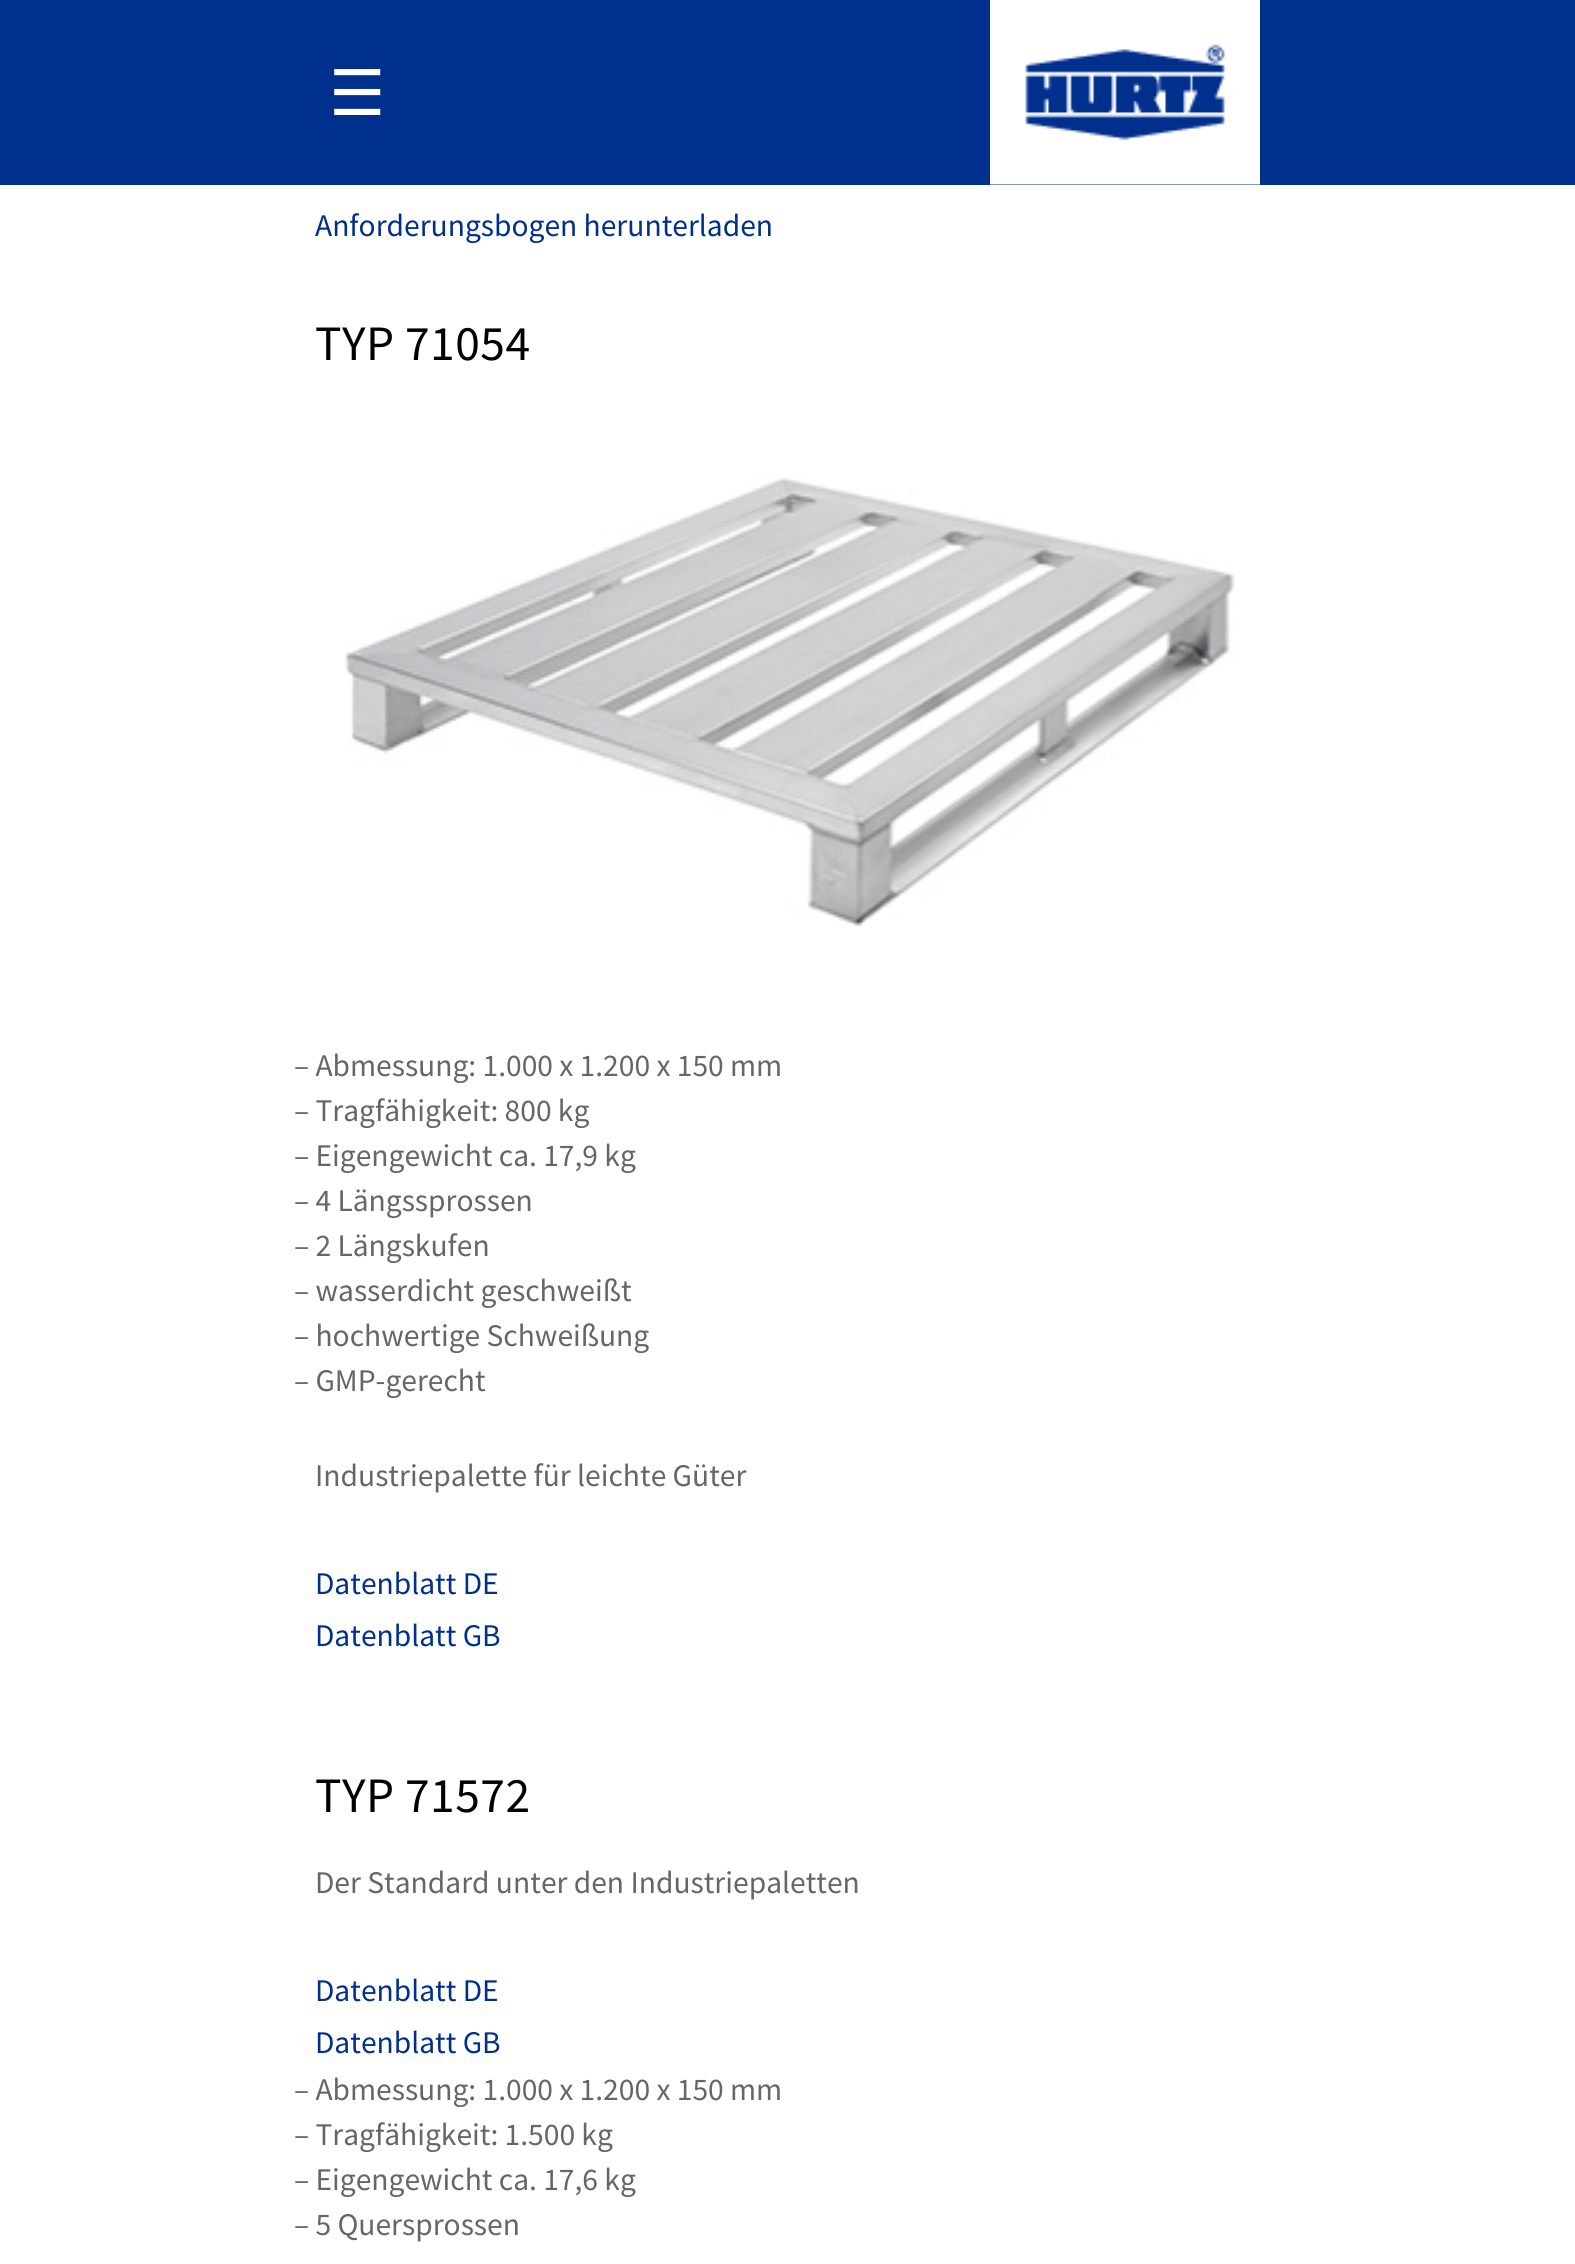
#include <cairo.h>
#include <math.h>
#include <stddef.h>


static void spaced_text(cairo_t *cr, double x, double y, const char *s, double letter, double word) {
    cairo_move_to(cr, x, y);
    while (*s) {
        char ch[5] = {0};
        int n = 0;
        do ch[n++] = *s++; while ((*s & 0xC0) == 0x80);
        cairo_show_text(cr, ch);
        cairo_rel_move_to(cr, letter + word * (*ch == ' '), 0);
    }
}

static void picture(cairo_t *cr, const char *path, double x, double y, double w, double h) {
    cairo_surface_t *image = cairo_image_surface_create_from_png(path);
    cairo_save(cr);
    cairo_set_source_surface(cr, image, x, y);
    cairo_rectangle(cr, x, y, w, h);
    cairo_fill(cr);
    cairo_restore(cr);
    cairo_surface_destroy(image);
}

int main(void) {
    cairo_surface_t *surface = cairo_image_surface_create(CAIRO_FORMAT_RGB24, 1575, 2264);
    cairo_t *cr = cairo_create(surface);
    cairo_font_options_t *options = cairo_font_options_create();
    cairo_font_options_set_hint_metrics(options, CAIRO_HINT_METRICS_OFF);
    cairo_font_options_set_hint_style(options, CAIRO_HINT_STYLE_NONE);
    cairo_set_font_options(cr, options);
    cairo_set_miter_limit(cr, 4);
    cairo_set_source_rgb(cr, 1, 1, 1);
    cairo_paint(cr);
    cairo_set_source_rgb(cr, 0, 0.188, 0.553);
    cairo_rectangle(cr, 0, 0, 1575, 185);
    cairo_fill(cr);
    cairo_select_font_face(cr, "DejaVu Sans", CAIRO_FONT_SLANT_NORMAL, CAIRO_FONT_WEIGHT_NORMAL);
    cairo_set_font_size(cr, 63);
    cairo_set_source_rgb(cr, 1, 1, 1);
    cairo_move_to(cr, 329, 115);
    cairo_show_text(cr, "☰");
    picture(cr, "img1.png", 990, 0, 270, 185);
    cairo_select_font_face(cr, "Source Sans Pro", CAIRO_FONT_SLANT_NORMAL, CAIRO_FONT_WEIGHT_NORMAL);
    cairo_set_font_size(cr, 31.5);
    cairo_set_source_rgb(cr, 0, 0.188, 0.553);
    cairo_move_to(cr, 315, 236);
    cairo_show_text(cr, "Anforderungsbogen herunterladen");
    cairo_set_font_size(cr, 49.5);
    cairo_set_source_rgb(cr, 0, 0, 0);
    spaced_text(cr, 315, 360, "TYP 71054", 0.5, 0);
    picture(cr, "img2.png", 344, 477, 891, 450);
    cairo_set_font_size(cr, 31.5);
    cairo_set_source_rgb(cr, 0.4, 0.4, 0.4);
    cairo_move_to(cr, 294, 1076);
    cairo_show_text(cr, "– Abmessung: 1.000 x 1.200 x 150 mm");
    cairo_move_to(cr, 294, 1121);
    cairo_show_text(cr, "– Tragfähigkeit: 800 kg");
    cairo_move_to(cr, 294, 1166);
    cairo_show_text(cr, "– Eigengewicht ca. 17,9 kg");
    cairo_move_to(cr, 294, 1211);
    cairo_show_text(cr, "– 4 Längssprossen");
    cairo_move_to(cr, 294, 1256);
    cairo_show_text(cr, "– 2 Längskufen");
    cairo_move_to(cr, 294, 1301);
    cairo_show_text(cr, "– wasserdicht geschweißt");
    cairo_move_to(cr, 294, 1346);
    cairo_show_text(cr, "– hochwertige Schweißung");
    cairo_move_to(cr, 294, 1391);
    cairo_show_text(cr, "– GMP-gerecht");
    cairo_move_to(cr, 315, 1486);
    cairo_show_text(cr, "Industriepalette für leichte Güter");
    cairo_set_source_rgb(cr, 0, 0.188, 0.553);
    cairo_move_to(cr, 315, 1594);
    cairo_show_text(cr, "Datenblatt DE");
    cairo_move_to(cr, 315, 1646);
    cairo_show_text(cr, "Datenblatt GB");
    cairo_set_font_size(cr, 49.5);
    cairo_set_source_rgb(cr, 0, 0, 0);
    spaced_text(cr, 315, 1812, "TYP 71572", 0.5, 0);
    cairo_set_font_size(cr, 31.5);
    cairo_set_source_rgb(cr, 0.4, 0.4, 0.4);
    cairo_move_to(cr, 315, 1893);
    cairo_show_text(cr, "Der Standard unter den Industriepaletten");
    cairo_set_source_rgb(cr, 0, 0.188, 0.553);
    cairo_move_to(cr, 315, 2001);
    cairo_show_text(cr, "Datenblatt DE");
    cairo_move_to(cr, 315, 2053);
    cairo_show_text(cr, "Datenblatt GB");
    cairo_set_source_rgb(cr, 0.4, 0.4, 0.4);
    cairo_move_to(cr, 294, 2100);
    cairo_show_text(cr, "– Abmessung: 1.000 x 1.200 x 150 mm");
    cairo_move_to(cr, 294, 2145);
    cairo_show_text(cr, "– Tragfähigkeit: 1.500 kg");
    cairo_move_to(cr, 294, 2190);
    cairo_show_text(cr, "– Eigengewicht ca. 17,6 kg");
    cairo_move_to(cr, 294, 2235);
    cairo_show_text(cr, "– 5 Quersprossen");
    cairo_surface_write_to_png(surface, "page.png");
    cairo_font_options_destroy(options);
    cairo_destroy(cr);
    cairo_surface_destroy(surface);
    return 0;
}
